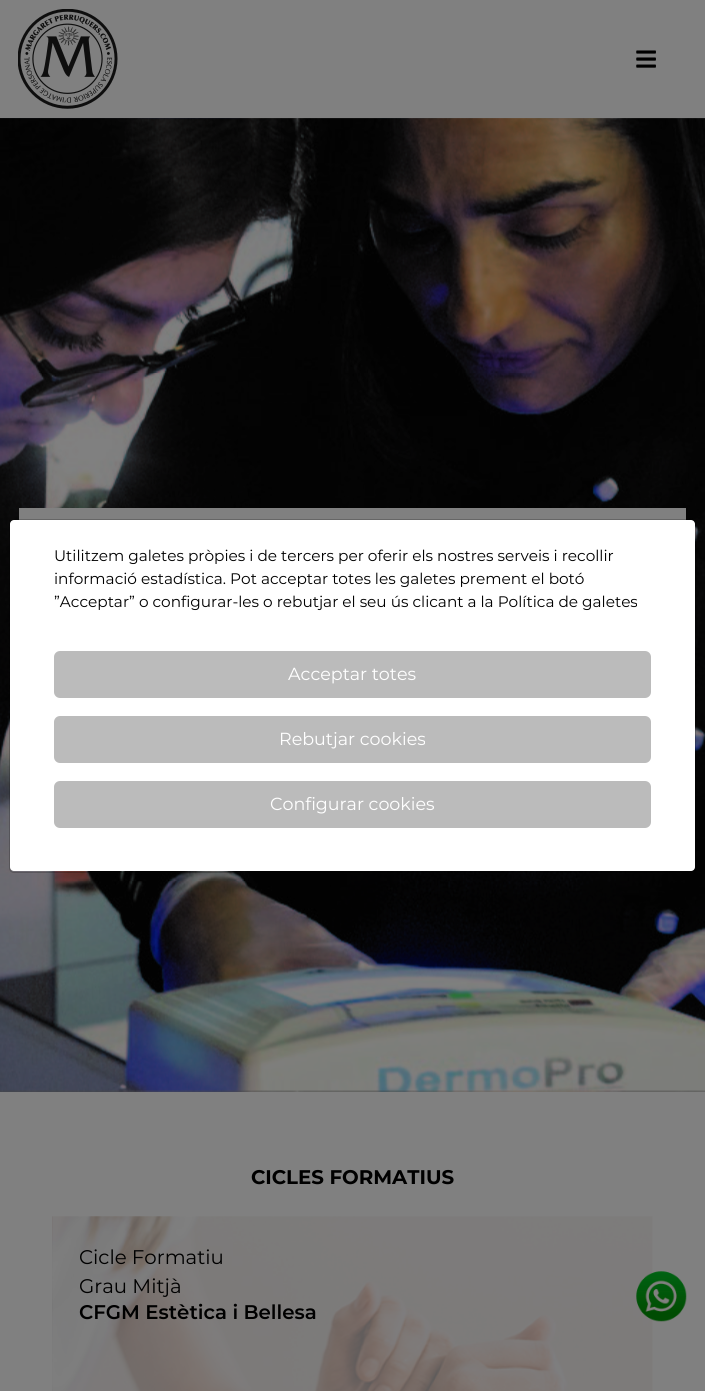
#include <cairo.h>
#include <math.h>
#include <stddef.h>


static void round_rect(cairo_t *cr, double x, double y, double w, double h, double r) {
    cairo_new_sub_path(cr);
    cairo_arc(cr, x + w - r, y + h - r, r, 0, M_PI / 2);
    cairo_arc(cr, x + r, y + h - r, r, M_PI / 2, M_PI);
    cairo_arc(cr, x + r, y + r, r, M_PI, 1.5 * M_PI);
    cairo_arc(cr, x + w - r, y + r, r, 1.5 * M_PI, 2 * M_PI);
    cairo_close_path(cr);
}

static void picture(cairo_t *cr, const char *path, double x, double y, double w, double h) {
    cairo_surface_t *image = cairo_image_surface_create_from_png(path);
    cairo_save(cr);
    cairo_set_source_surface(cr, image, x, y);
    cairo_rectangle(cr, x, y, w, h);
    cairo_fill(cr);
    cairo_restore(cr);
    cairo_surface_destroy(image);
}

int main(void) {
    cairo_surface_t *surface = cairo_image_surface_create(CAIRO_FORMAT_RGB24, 705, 1391);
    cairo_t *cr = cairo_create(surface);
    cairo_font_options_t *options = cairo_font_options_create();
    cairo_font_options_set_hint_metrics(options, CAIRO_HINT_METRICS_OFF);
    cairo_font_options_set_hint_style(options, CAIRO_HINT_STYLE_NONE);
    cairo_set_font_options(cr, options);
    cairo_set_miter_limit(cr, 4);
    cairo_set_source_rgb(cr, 0.502, 0.502, 0.502);
    cairo_paint(cr);
    picture(cr, "img3.png", 0, 118, 705, 974);
    cairo_set_source_rgb(cr, 1, 1, 1);
    round_rect(cr, 10, 520, 685, 351, 4);
    cairo_fill(cr);
    cairo_set_source_rgb(cr, 0.502, 0.502, 0.502);
    cairo_rectangle(cr, 19, 508, 667, 12);
    cairo_fill(cr);
    round_rect(cr, 9.5, 519.5, 686, 353, 4.5);
    cairo_set_source_rgba(cr, 0, 0, 0, 0.2);
    cairo_set_line_width(cr, 1);
    cairo_stroke(cr);
    cairo_select_font_face(cr, "Montserrat", CAIRO_FONT_SLANT_NORMAL, CAIRO_FONT_WEIGHT_NORMAL);
    cairo_set_font_size(cr, 15.3);
    cairo_set_source_rgb(cr, 0, 0, 0);
    cairo_move_to(cr, 54, 561);
    cairo_show_text(cr, "Utilitzem galetes pròpies i de tercers per oferir els nostres serveis i recollir");
    cairo_move_to(cr, 54, 584);
    cairo_show_text(cr, "informació estadística. Pot acceptar totes les galetes prement el botó");
    cairo_move_to(cr, 54, 607);
    cairo_show_text(cr, "”Acceptar” o configurar-les o rebutjar el seu ús clicant a la Política de galetes");
    cairo_set_source_rgb(cr, 0.733, 0.733, 0.733);
    round_rect(cr, 54, 651, 597, 47, 6);
    cairo_fill(cr);
    cairo_set_font_size(cr, 17.5);
    cairo_set_source_rgb(cr, 1, 1, 1);
    cairo_move_to(cr, 288, 680);
    cairo_show_text(cr, "Acceptar totes");
    cairo_set_source_rgb(cr, 0.733, 0.733, 0.733);
    round_rect(cr, 54, 716, 597, 47, 6);
    cairo_fill(cr);
    cairo_set_source_rgb(cr, 1, 1, 1);
    cairo_move_to(cr, 279, 745);
    cairo_show_text(cr, "Rebutjar cookies");
    cairo_set_source_rgb(cr, 0.733, 0.733, 0.733);
    round_rect(cr, 54, 781, 597, 47, 6);
    cairo_fill(cr);
    cairo_set_source_rgb(cr, 1, 1, 1);
    cairo_move_to(cr, 270, 810);
    cairo_show_text(cr, "Configurar cookies");
    picture(cr, "img1.png", 18, 9, 100, 100);
    picture(cr, "img2.png", 636, 50, 20, 18);
    cairo_select_font_face(cr, "Montserrat", CAIRO_FONT_SLANT_NORMAL, CAIRO_FONT_WEIGHT_BOLD);
    cairo_set_font_size(cr, 19.75);
    cairo_set_source_rgb(cr, 0, 0, 0);
    cairo_move_to(cr, 251, 1184);
    cairo_show_text(cr, "CICLES FORMATIUS");
    picture(cr, "img4.png", 52, 1216, 601, 175);
    cairo_select_font_face(cr, "Montserrat", CAIRO_FONT_SLANT_NORMAL, CAIRO_FONT_WEIGHT_NORMAL);
    cairo_move_to(cr, 79, 1264);
    cairo_show_text(cr, "Cicle Formatiu");
    cairo_move_to(cr, 79, 1293);
    cairo_show_text(cr, "Grau Mitjà");
    cairo_select_font_face(cr, "Montserrat SemiBold", CAIRO_FONT_SLANT_NORMAL, CAIRO_FONT_WEIGHT_NORMAL);
    cairo_move_to(cr, 79, 1319);
    cairo_show_text(cr, "CFGM Estètica i Bellesa");
    picture(cr, "img5.png", 636, 1271, 51, 51);
    cairo_surface_write_to_png(surface, "page.png");
    cairo_font_options_destroy(options);
    cairo_destroy(cr);
    cairo_surface_destroy(surface);
    return 0;
}
